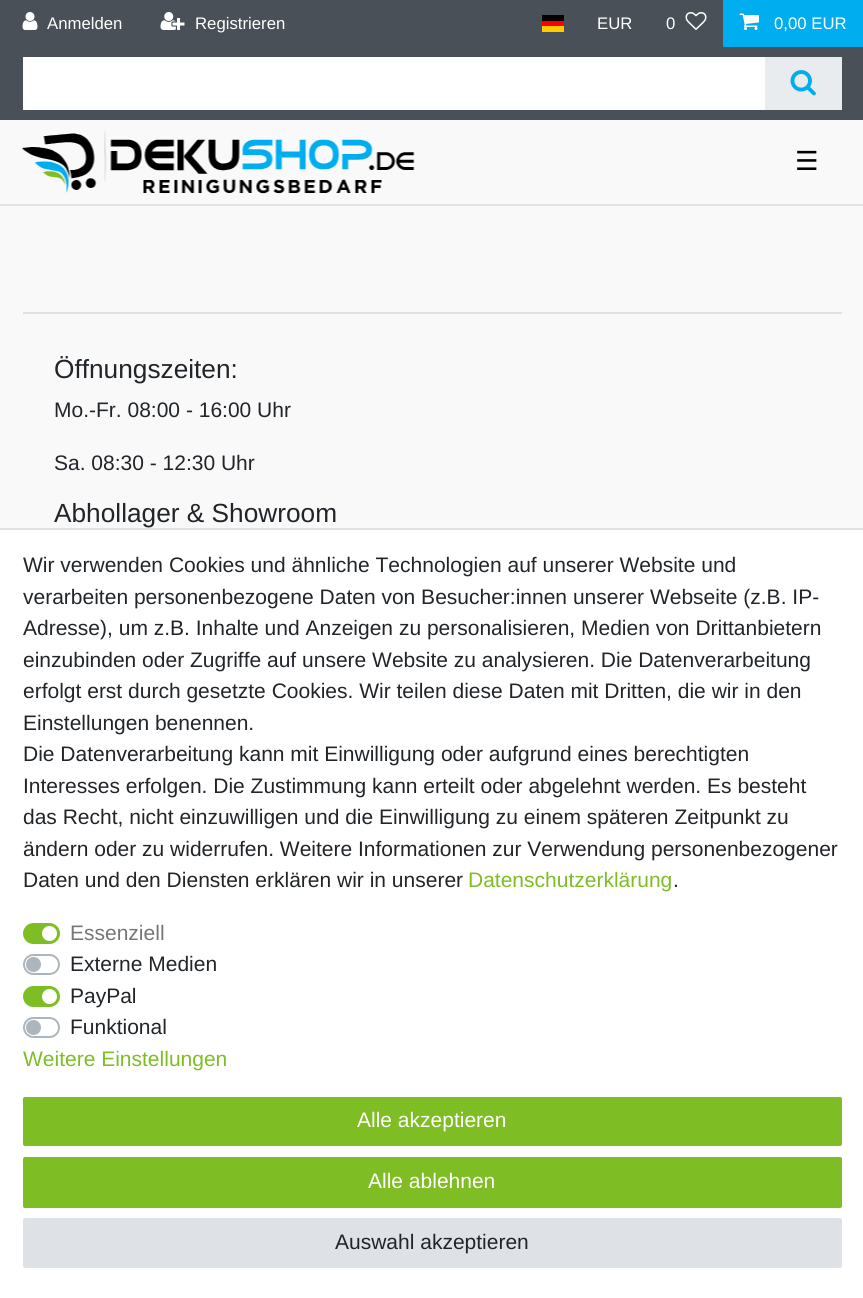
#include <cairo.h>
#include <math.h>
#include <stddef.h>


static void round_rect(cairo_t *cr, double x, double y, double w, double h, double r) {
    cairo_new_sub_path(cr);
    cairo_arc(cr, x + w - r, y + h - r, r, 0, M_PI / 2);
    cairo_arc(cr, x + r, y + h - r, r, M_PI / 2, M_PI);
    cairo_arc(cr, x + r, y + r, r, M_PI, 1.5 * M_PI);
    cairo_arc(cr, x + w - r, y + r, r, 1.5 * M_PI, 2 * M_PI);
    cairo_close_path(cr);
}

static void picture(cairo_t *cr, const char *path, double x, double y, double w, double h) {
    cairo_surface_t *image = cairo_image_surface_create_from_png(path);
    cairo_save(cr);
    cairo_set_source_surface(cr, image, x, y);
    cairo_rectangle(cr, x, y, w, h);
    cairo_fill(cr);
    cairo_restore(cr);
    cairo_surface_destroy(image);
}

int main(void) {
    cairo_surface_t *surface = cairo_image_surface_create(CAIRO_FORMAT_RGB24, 863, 1298);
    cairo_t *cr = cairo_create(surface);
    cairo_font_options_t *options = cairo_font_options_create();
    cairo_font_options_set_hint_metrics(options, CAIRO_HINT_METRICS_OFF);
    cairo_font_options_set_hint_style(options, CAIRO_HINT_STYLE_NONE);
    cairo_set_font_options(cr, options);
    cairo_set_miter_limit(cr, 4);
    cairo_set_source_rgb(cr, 0.973, 0.976, 0.98);
    cairo_paint(cr);
    cairo_set_source_rgb(cr, 0.286, 0.314, 0.341);
    cairo_rectangle(cr, 0, 0, 863, 120);
    cairo_fill(cr);
    picture(cr, "img1.png", 22, 12, 16, 18);
    cairo_select_font_face(cr, "Liberation Sans", CAIRO_FONT_SLANT_NORMAL, CAIRO_FONT_WEIGHT_NORMAL);
    cairo_set_font_size(cr, 16.75);
    cairo_set_source_rgb(cr, 1, 1, 1);
    cairo_move_to(cr, 47, 29);
    cairo_show_text(cr, "Anmelden");
    picture(cr, "img2.png", 160, 12, 25, 18);
    cairo_move_to(cr, 195, 29);
    cairo_show_text(cr, "Registrieren");
    cairo_set_source_rgb(cr, 1, 0.8, 0);
    cairo_rectangle(cr, 542, 26, 22, 6);
    cairo_fill(cr);
    cairo_set_source_rgb(cr, 0, 0, 0);
    cairo_rectangle(cr, 542, 15, 22, 6);
    cairo_fill(cr);
    cairo_set_source_rgb(cr, 1, 0, 0);
    cairo_rectangle(cr, 542, 21, 22, 5);
    cairo_fill(cr);
    cairo_set_source_rgb(cr, 1, 1, 1);
    cairo_move_to(cr, 597, 29);
    cairo_show_text(cr, "EUR");
    cairo_move_to(cr, 666, 29);
    cairo_show_text(cr, "0");
    picture(cr, "img3.png", 685, 12, 22, 18);
    cairo_set_source_rgb(cr, 0, 0.678, 0.937);
    cairo_rectangle(cr, 723, 0, 140, 47);
    cairo_fill(cr);
    picture(cr, "img4.png", 739, 13, 20, 17);
    cairo_set_source_rgb(cr, 1, 1, 1);
    cairo_move_to(cr, 774, 29);
    cairo_show_text(cr, "0,00 EUR");
    cairo_rectangle(cr, 23, 57, 742, 53);
    cairo_fill(cr);
    cairo_set_source_rgb(cr, 0.914, 0.925, 0.937);
    cairo_rectangle(cr, 765, 57, 77, 53);
    cairo_fill(cr);
    picture(cr, "img5.png", 790, 70, 26, 26);
    cairo_set_source_rgb(cr, 0.871, 0.886, 0.902);
    cairo_rectangle(cr, 0, 204, 863, 2);
    cairo_fill(cr);
    picture(cr, "img6.png", 22, 131, 393, 63);
    cairo_select_font_face(cr, "DejaVu Sans", CAIRO_FONT_SLANT_NORMAL, CAIRO_FONT_WEIGHT_NORMAL);
    cairo_set_font_size(cr, 26.25);
    cairo_set_source_rgb(cr, 0, 0, 0);
    cairo_move_to(cr, 795, 170);
    cairo_show_text(cr, "☰");
    cairo_set_source_rgb(cr, 0.871, 0.886, 0.902);
    cairo_rectangle(cr, 23, 312, 819, 2);
    cairo_fill(cr);
    cairo_select_font_face(cr, "Liberation Sans", CAIRO_FONT_SLANT_NORMAL, CAIRO_FONT_WEIGHT_NORMAL);
    cairo_set_source_rgb(cr, 0.129, 0.145, 0.161);
    cairo_move_to(cr, 54, 378);
    cairo_show_text(cr, "Öffnungszeiten:");
    cairo_set_font_size(cr, 21);
    cairo_move_to(cr, 54, 417);
    cairo_show_text(cr, "Mo.-Fr. 08:00 - 16:00 Uhr");
    cairo_move_to(cr, 54, 470);
    cairo_show_text(cr, "Sa. 08:30 - 12:30 Uhr");
    cairo_set_font_size(cr, 26.25);
    cairo_move_to(cr, 54, 522);
    cairo_show_text(cr, "Abhollager & Showroom");
    cairo_set_source_rgb(cr, 1, 1, 1);
    cairo_rectangle(cr, 0, 530, 863, 768);
    cairo_fill(cr);
    cairo_set_source_rgb(cr, 0.871, 0.886, 0.902);
    cairo_rectangle(cr, 0, 528, 863, 2);
    cairo_fill(cr);
    cairo_set_font_size(cr, 21);
    cairo_set_source_rgb(cr, 0.129, 0.145, 0.161);
    cairo_move_to(cr, 23, 572);
    cairo_show_text(cr, "Wir verwenden Cookies und ähnliche Technologien auf unserer Website und");
    cairo_move_to(cr, 23, 604);
    cairo_show_text(cr, "verarbeiten personenbezogene Daten von Besucher:innen unserer Webseite (z.B. IP-");
    cairo_move_to(cr, 23, 635);
    cairo_show_text(cr, "Adresse), um z.B. Inhalte und Anzeigen zu personalisieren, Medien von Drittanbietern");
    cairo_move_to(cr, 23, 667);
    cairo_show_text(cr, "einzubinden oder Zugriffe auf unsere Website zu analysieren. Die Datenverarbeitung");
    cairo_move_to(cr, 23, 698);
    cairo_show_text(cr, "erfolgt erst durch gesetzte Cookies. Wir teilen diese Daten mit Dritten, die wir in den");
    cairo_move_to(cr, 23, 730);
    cairo_show_text(cr, "Einstellungen benennen.");
    cairo_move_to(cr, 23, 761);
    cairo_show_text(cr, "Die Datenverarbeitung kann mit Einwilligung oder aufgrund eines berechtigten");
    cairo_move_to(cr, 23, 793);
    cairo_show_text(cr, "Interesses erfolgen. Die Zustimmung kann erteilt oder abgelehnt werden. Es besteht");
    cairo_move_to(cr, 23, 824);
    cairo_show_text(cr, "das Recht, nicht einzuwilligen und die Einwilligung zu einem späteren Zeitpunkt zu");
    cairo_move_to(cr, 23, 856);
    cairo_show_text(cr, "ändern oder zu widerrufen. Weitere Informationen zur Verwendung personenbezogener");
    cairo_move_to(cr, 23, 887);
    cairo_show_text(cr, "Daten und den Diensten erklären wir in unserer");
    cairo_set_source_rgb(cr, 0.494, 0.741, 0.141);
    cairo_move_to(cr, 468, 887);
    cairo_show_text(cr, "Datenschutzerklärung");
    cairo_set_source_rgb(cr, 0.129, 0.145, 0.161);
    cairo_move_to(cr, 673, 887);
    cairo_show_text(cr, ".");
    cairo_set_source_rgb(cr, 0.494, 0.741, 0.141);
    round_rect(cr, 24, 924, 35, 19, 9.5);
    cairo_fill_preserve(cr);
    cairo_stroke(cr);
    cairo_set_source_rgb(cr, 0.463, 0.463, 0.463);
    cairo_move_to(cr, 70, 940);
    cairo_show_text(cr, "Essenziell");
    cairo_set_source_rgb(cr, 1, 1, 1);
    cairo_new_path(cr);
    cairo_arc(cr, 49.5, 933.5, 7.5, 0, 2 * M_PI);
    cairo_fill(cr);
    round_rect(cr, 24, 955, 35, 19, 9.5);
    cairo_set_source_rgb(cr, 0.678, 0.71, 0.741);
    cairo_stroke(cr);
    cairo_set_source_rgb(cr, 0.129, 0.145, 0.161);
    cairo_move_to(cr, 70, 971);
    cairo_show_text(cr, "Externe Medien");
    cairo_set_source_rgb(cr, 0.678, 0.71, 0.741);
    cairo_new_path(cr);
    cairo_arc(cr, 33.5, 964.5, 7.5, 0, 2 * M_PI);
    cairo_fill(cr);
    cairo_set_source_rgb(cr, 0.494, 0.741, 0.141);
    round_rect(cr, 24, 987, 35, 19, 9.5);
    cairo_fill_preserve(cr);
    cairo_stroke(cr);
    cairo_set_source_rgb(cr, 0.129, 0.145, 0.161);
    cairo_move_to(cr, 70, 1003);
    cairo_show_text(cr, "PayPal");
    cairo_set_source_rgb(cr, 1, 1, 1);
    cairo_new_path(cr);
    cairo_arc(cr, 49.5, 996.5, 7.5, 0, 2 * M_PI);
    cairo_fill(cr);
    round_rect(cr, 24, 1018, 35, 19, 9.5);
    cairo_set_source_rgb(cr, 0.678, 0.71, 0.741);
    cairo_stroke(cr);
    cairo_set_source_rgb(cr, 0.129, 0.145, 0.161);
    cairo_move_to(cr, 70, 1034);
    cairo_show_text(cr, "Funktional");
    cairo_set_source_rgb(cr, 0.678, 0.71, 0.741);
    cairo_new_path(cr);
    cairo_arc(cr, 33.5, 1027.5, 7.5, 0, 2 * M_PI);
    cairo_fill(cr);
    cairo_set_source_rgb(cr, 0.494, 0.741, 0.141);
    cairo_move_to(cr, 23, 1066);
    cairo_show_text(cr, "Weitere Einstellungen");
    round_rect(cr, 24, 1098, 817, 47, 1);
    cairo_fill_preserve(cr);
    cairo_stroke(cr);
    cairo_set_source_rgb(cr, 1, 1, 1);
    cairo_move_to(cr, 357, 1127);
    cairo_show_text(cr, "Alle akzeptieren");
    cairo_set_source_rgb(cr, 0.494, 0.741, 0.141);
    round_rect(cr, 24, 1158, 817, 49, 1);
    cairo_fill_preserve(cr);
    cairo_stroke(cr);
    cairo_set_source_rgb(cr, 1, 1, 1);
    cairo_move_to(cr, 368, 1188);
    cairo_show_text(cr, "Alle ablehnen");
    cairo_set_source_rgb(cr, 0.871, 0.886, 0.902);
    round_rect(cr, 24, 1219, 817, 48, 1);
    cairo_fill_preserve(cr);
    cairo_stroke(cr);
    cairo_set_source_rgb(cr, 0.129, 0.145, 0.161);
    cairo_move_to(cr, 335, 1249);
    cairo_show_text(cr, "Auswahl akzeptieren");
    cairo_surface_write_to_png(surface, "page.png");
    cairo_font_options_destroy(options);
    cairo_destroy(cr);
    cairo_surface_destroy(surface);
    return 0;
}
